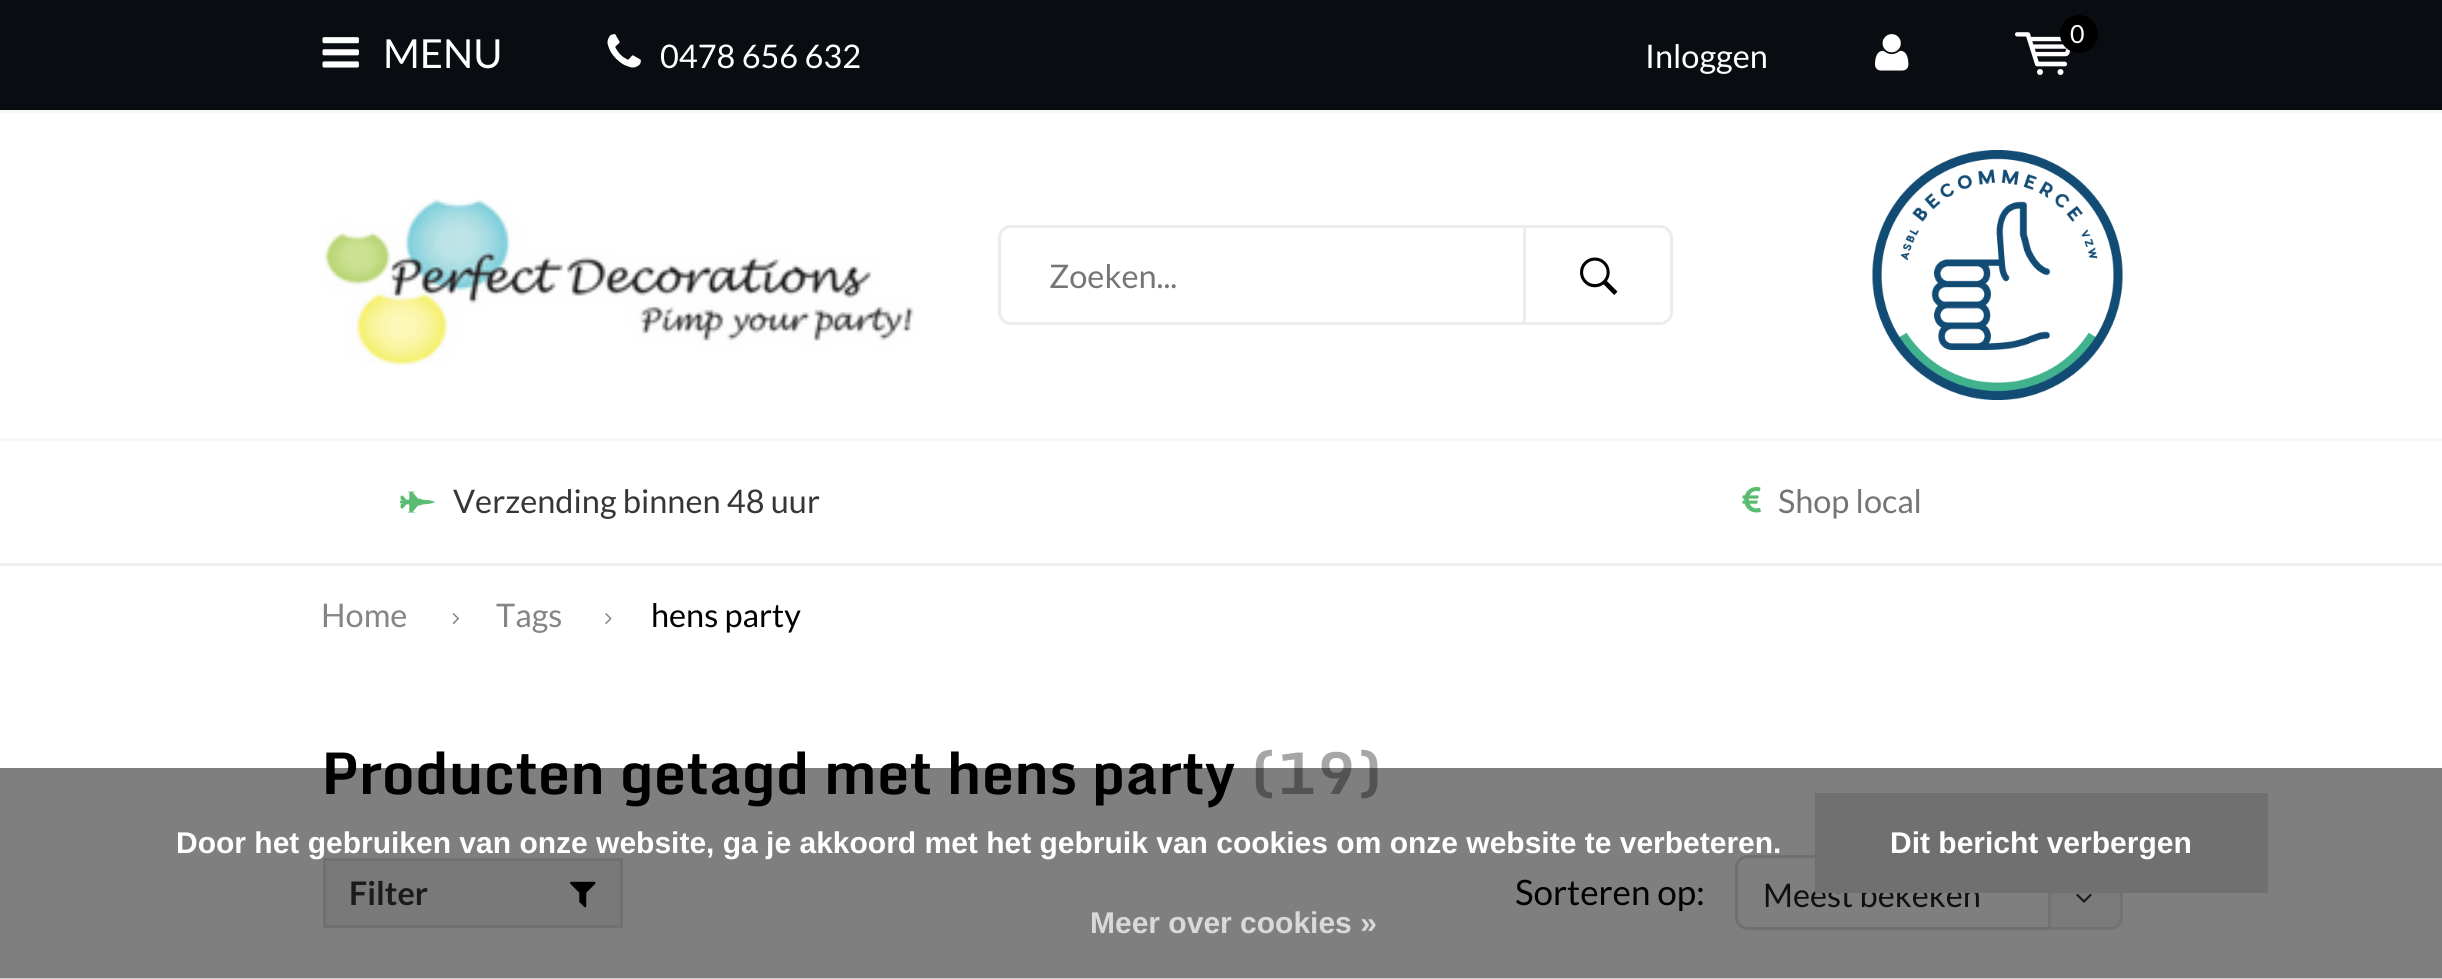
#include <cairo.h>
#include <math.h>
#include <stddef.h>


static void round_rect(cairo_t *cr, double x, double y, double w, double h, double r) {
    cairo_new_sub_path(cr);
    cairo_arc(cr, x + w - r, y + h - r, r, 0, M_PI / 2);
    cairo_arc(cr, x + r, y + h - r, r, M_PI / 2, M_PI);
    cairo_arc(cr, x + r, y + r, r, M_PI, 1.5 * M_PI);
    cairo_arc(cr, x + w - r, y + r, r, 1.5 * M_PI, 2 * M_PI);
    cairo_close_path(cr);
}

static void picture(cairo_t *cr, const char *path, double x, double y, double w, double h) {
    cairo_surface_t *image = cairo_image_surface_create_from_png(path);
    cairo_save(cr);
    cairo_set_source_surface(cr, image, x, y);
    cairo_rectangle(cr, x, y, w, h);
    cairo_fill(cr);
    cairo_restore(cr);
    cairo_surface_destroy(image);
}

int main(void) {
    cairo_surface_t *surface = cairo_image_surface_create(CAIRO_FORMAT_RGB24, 2442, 979);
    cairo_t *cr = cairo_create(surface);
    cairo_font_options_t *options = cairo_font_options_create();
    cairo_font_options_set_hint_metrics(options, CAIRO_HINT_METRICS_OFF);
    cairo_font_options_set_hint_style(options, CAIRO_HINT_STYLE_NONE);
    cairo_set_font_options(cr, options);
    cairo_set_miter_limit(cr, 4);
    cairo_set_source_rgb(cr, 1, 1, 1);
    cairo_paint(cr);
    cairo_set_source_rgb(cr, 0.039, 0.051, 0.067);
    cairo_rectangle(cr, 0, 0, 2442, 110);
    cairo_fill(cr);
    picture(cr, "img1.png", 322, 37, 37, 31);
    cairo_select_font_face(cr, "Lato", CAIRO_FONT_SLANT_NORMAL, CAIRO_FONT_WEIGHT_NORMAL);
    cairo_set_font_size(cr, 40);
    cairo_set_source_rgb(cr, 1, 1, 1);
    cairo_move_to(cr, 383, 68);
    cairo_show_text(cr, "MENU");
    picture(cr, "img2.png", 607, 34, 34, 34);
    cairo_set_font_size(cr, 32.5);
    cairo_move_to(cr, 660, 68);
    cairo_show_text(cr, "0478 656 632");
    cairo_move_to(cr, 1645, 68);
    cairo_show_text(cr, "Inloggen");
    picture(cr, "img3.png", 1875, 34, 34, 37);
    picture(cr, "img4.png", 2015, 32, 56, 43);
    cairo_set_source_rgb(cr, 0, 0, 0);
    cairo_arc(cr, 2079, 34, 19, 0, 2 * M_PI);
    cairo_fill(cr);
    cairo_set_font_size(cr, 25);
    cairo_set_source_rgb(cr, 1, 1, 1);
    cairo_move_to(cr, 2070, 43);
    cairo_show_text(cr, "0");
    cairo_set_source_rgb(cr, 0.98, 0.965, 0.965);
    cairo_rectangle(cr, 0, 110, 2442, 3);
    cairo_fill(cr);
    cairo_rectangle(cr, 0, 438, 2442, 3);
    cairo_fill(cr);
    picture(cr, "img5.png", 324, 199, 590, 166);
    round_rect(cr, 999.5, 226.5, 672, 97, 11.5);
    cairo_set_source_rgb(cr, 0.922, 0.922, 0.922);
    cairo_set_line_width(cr, 3);
    cairo_stroke(cr);
    cairo_set_font_size(cr, 32.5);
    cairo_set_source_rgb(cr, 0.459, 0.459, 0.459);
    cairo_move_to(cr, 1049, 288);
    cairo_show_text(cr, "Zoeken...");
    cairo_set_source_rgb(cr, 0.922, 0.922, 0.922);
    cairo_rectangle(cr, 1523, 225, 3, 100);
    cairo_fill(cr);
    picture(cr, "img6.png", 1580, 257, 38, 38);
    picture(cr, "img7.png", 1872, 150, 251, 250);
    cairo_set_source_rgb(cr, 0.937, 0.937, 0.937);
    cairo_rectangle(cr, 0, 563, 2442, 3);
    cairo_fill(cr);
    picture(cr, "img8.png", 400, 491, 35, 22);
    cairo_set_source_rgb(cr, 0.212, 0.212, 0.212);
    cairo_move_to(cr, 453, 513);
    cairo_show_text(cr, "Verzending binnen 48 uur");
    picture(cr, "img9.png", 1742, 487, 19, 26);
    cairo_set_source_rgb(cr, 0.459, 0.459, 0.459);
    cairo_move_to(cr, 1778, 513);
    cairo_show_text(cr, "Shop local");
    cairo_set_source_rgb(cr, 0.522, 0.522, 0.522);
    cairo_move_to(cr, 321, 627);
    cairo_show_text(cr, "Home");
    picture(cr, "img10.png", 452, 613, 8, 12);
    cairo_move_to(cr, 496, 627);
    cairo_show_text(cr, "Tags");
    picture(cr, "img11.png", 605, 613, 7, 11);
    cairo_set_source_rgb(cr, 0, 0, 0);
    cairo_move_to(cr, 651, 627);
    cairo_show_text(cr, "hens party");
    cairo_select_font_face(cr, "Monda", CAIRO_FONT_SLANT_NORMAL, CAIRO_FONT_WEIGHT_BOLD);
    cairo_set_font_size(cr, 57.5);
    cairo_move_to(cr, 321, 794);
    cairo_show_text(cr, "Producten getagd met hens party");
    cairo_set_source_rgb(cr, 0.651, 0.651, 0.651);
    cairo_move_to(cr, 1250, 794);
    cairo_show_text(cr, "(19)");
    cairo_set_source_rgb(cr, 0.953, 0.953, 0.953);
    cairo_rectangle(cr, 324.5, 859.5, 297, 67);
    cairo_fill_preserve(cr);
    cairo_set_source_rgb(cr, 0.882, 0.882, 0.882);
    cairo_stroke(cr);
    cairo_select_font_face(cr, "Lato", CAIRO_FONT_SLANT_NORMAL, CAIRO_FONT_WEIGHT_BOLD);
    cairo_set_font_size(cr, 32.5);
    cairo_set_source_rgb(cr, 0.212, 0.212, 0.212);
    cairo_move_to(cr, 349, 905);
    cairo_show_text(cr, "Filter");
    picture(cr, "img12.png", 570, 881, 26, 27);
    cairo_select_font_face(cr, "Lato", CAIRO_FONT_SLANT_NORMAL, CAIRO_FONT_WEIGHT_NORMAL);
    cairo_set_font_size(cr, 35);
    cairo_set_source_rgb(cr, 0, 0, 0);
    cairo_move_to(cr, 1515, 905);
    cairo_show_text(cr, "Sorteren op:");
    round_rect(cr, 1736.5, 856.5, 385, 72, 11.5);
    cairo_set_source_rgb(cr, 0.882, 0.882, 0.882);
    cairo_stroke(cr);
    cairo_set_font_size(cr, 32.5);
    cairo_set_source_rgb(cr, 0.129, 0.129, 0.129);
    cairo_move_to(cr, 1763, 907);
    cairo_show_text(cr, "Meest bekeken");
    cairo_set_source_rgba(cr, 0.953, 0.953, 0.953, 0.8);
    cairo_new_path(cr);
    cairo_move_to(cr, 2048, 855);
    cairo_line_to(cr, 2110, 855);
    cairo_curve_to(cr, 2117, 855, 2123, 861, 2123, 868);
    cairo_line_to(cr, 2123, 917);
    cairo_curve_to(cr, 2123, 924, 2117, 930, 2110, 930);
    cairo_line_to(cr, 2048, 930);
    cairo_close_path(cr);
    cairo_fill(cr);
    cairo_new_path(cr);
    cairo_move_to(cr, 2049.5, 856.5);
    cairo_line_to(cr, 2110, 856.5);
    cairo_curve_to(cr, 2116.5, 856.5, 2121.5, 861.5, 2121.5, 868);
    cairo_line_to(cr, 2121.5, 917);
    cairo_curve_to(cr, 2121.5, 923.5, 2116.5, 928.5, 2110, 928.5);
    cairo_line_to(cr, 2049.5, 928.5);
    cairo_close_path(cr);
    cairo_set_source_rgba(cr, 0.882, 0.882, 0.882, 0.8);
    cairo_stroke(cr);
    picture(cr, "img13.png", 2076, 893, 16, 10);
    cairo_set_source_rgba(cr, 0, 0, 0, 0.5);
    cairo_rectangle(cr, 0, 768, 2442, 210);
    cairo_fill(cr);
    cairo_set_source_rgb(cr, 0.8, 0.8, 0.8);
    cairo_rectangle(cr, 0, 978, 2442, 1);
    cairo_fill(cr);
    cairo_select_font_face(cr, "Liberation Sans", CAIRO_FONT_SLANT_NORMAL, CAIRO_FONT_WEIGHT_BOLD);
    cairo_set_font_size(cr, 30);
    cairo_set_source_rgb(cr, 1, 1, 1);
    cairo_move_to(cr, 176, 853);
    cairo_show_text(cr, "Door het gebruiken van onze website, ga je akkoord met het gebruik van cookies om onze website te verbeteren.");
    cairo_set_source_rgb(cr, 0.439, 0.439, 0.439);
    cairo_rectangle(cr, 1815, 793, 453, 100);
    cairo_fill(cr);
    cairo_set_source_rgb(cr, 1, 1, 1);
    cairo_move_to(cr, 1890, 853);
    cairo_show_text(cr, "Dit bericht verbergen");
    cairo_set_source_rgb(cr, 0.851, 0.851, 0.851);
    cairo_move_to(cr, 1090, 933);
    cairo_show_text(cr, "Meer over cookies »");
    cairo_surface_write_to_png(surface, "page.png");
    cairo_font_options_destroy(options);
    cairo_destroy(cr);
    cairo_surface_destroy(surface);
    return 0;
}
